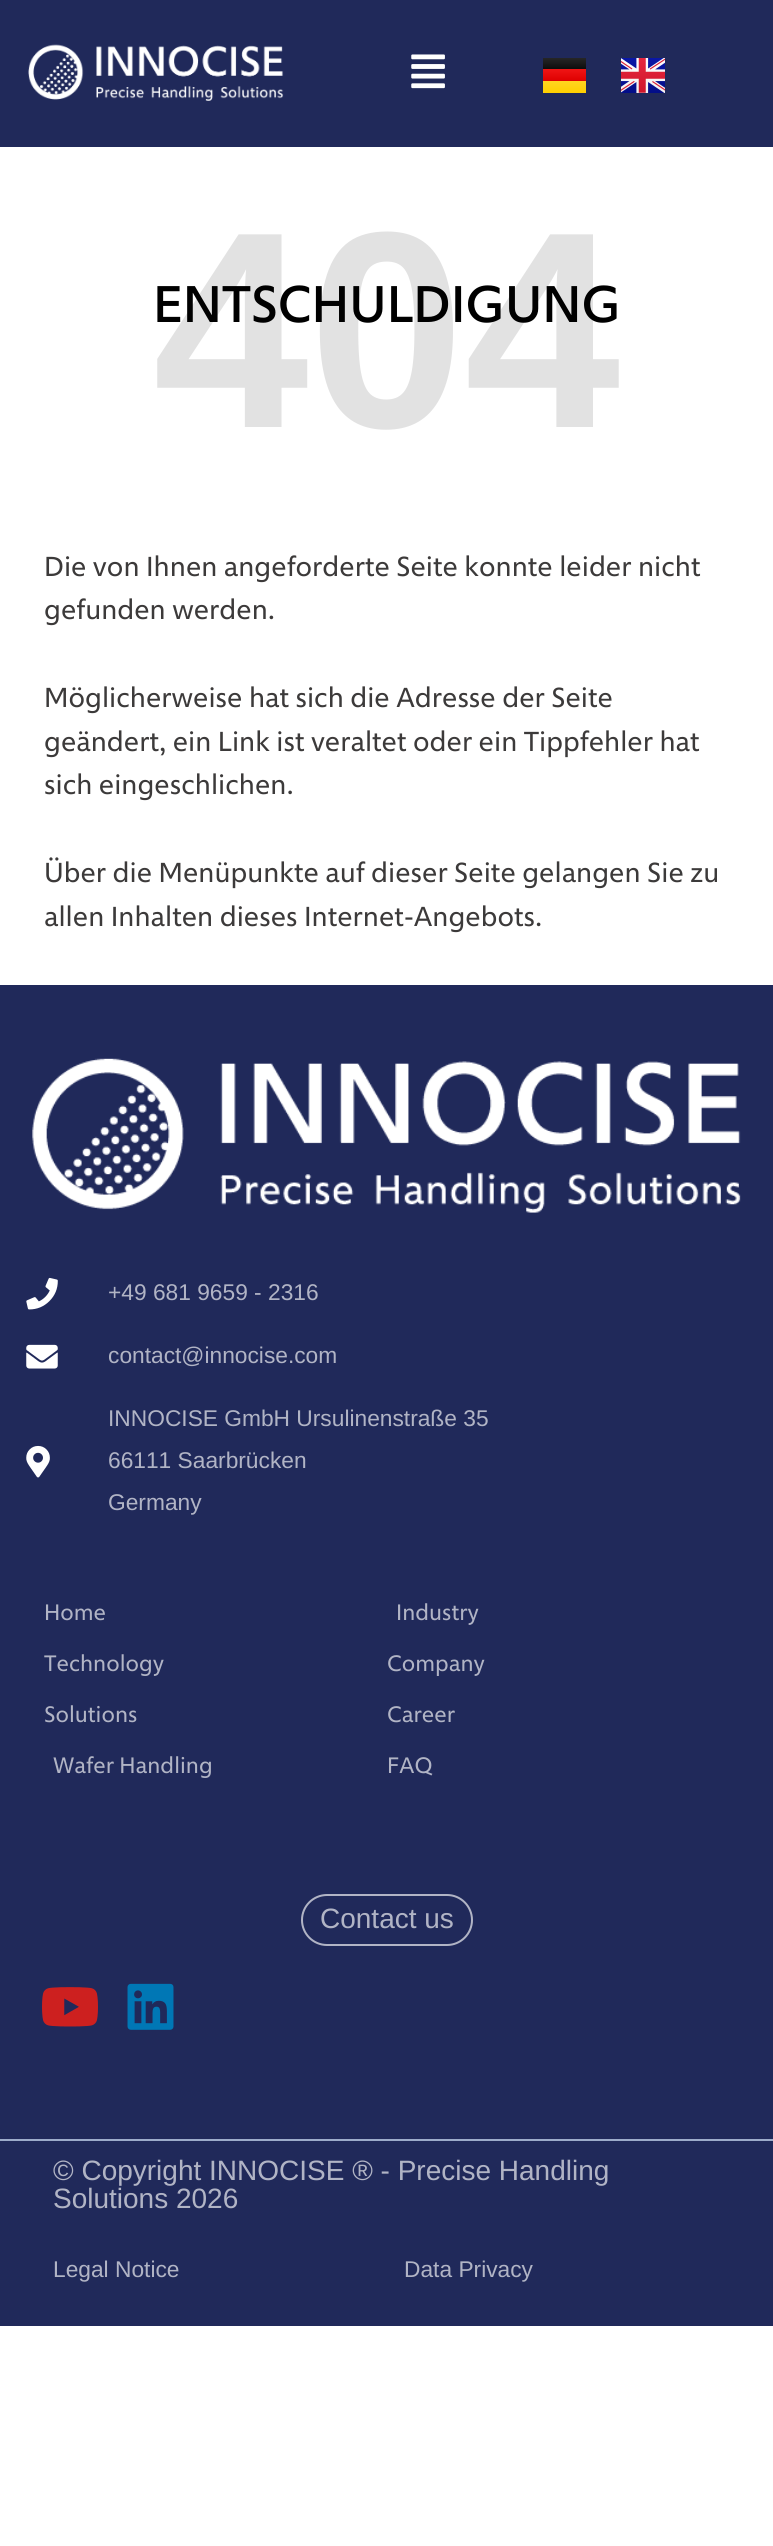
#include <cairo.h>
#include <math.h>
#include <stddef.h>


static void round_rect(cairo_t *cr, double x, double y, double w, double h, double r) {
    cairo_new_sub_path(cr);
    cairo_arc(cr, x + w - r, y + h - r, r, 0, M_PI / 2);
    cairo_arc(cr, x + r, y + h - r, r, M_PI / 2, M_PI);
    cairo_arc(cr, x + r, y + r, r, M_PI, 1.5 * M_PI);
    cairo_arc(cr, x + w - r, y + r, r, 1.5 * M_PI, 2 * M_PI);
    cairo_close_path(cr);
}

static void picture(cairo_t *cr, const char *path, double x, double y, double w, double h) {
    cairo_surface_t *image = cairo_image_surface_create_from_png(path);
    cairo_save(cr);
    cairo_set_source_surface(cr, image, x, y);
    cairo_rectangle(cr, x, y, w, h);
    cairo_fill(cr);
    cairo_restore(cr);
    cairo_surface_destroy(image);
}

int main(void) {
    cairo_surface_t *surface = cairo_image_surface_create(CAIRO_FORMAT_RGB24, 773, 2546);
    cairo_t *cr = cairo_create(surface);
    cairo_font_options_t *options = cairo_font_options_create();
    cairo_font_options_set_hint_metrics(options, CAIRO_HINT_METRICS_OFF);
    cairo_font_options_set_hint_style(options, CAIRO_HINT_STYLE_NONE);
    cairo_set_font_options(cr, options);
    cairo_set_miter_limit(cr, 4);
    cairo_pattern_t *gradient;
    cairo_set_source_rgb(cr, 1, 1, 1);
    cairo_paint(cr);
    cairo_set_source_rgb(cr, 0.125, 0.161, 0.353);
    cairo_rectangle(cr, 0, 0, 773, 147);
    cairo_fill(cr);
    picture(cr, "img1.png", 28, 44, 256, 57);
    picture(cr, "img2.png", 411, 54, 34, 35);
    gradient = cairo_pattern_create_linear(564, 58, 564, 69);
    cairo_pattern_add_color_stop_rgba(gradient, 0, 0.149, 0.149, 0.149, 1);
    cairo_pattern_add_color_stop_rgba(gradient, 1, 0.051, 0.051, 0.051, 1);
    cairo_set_source(cr, gradient);
    cairo_pattern_destroy(gradient);
    cairo_rectangle(cr, 543, 58, 43, 11);
    cairo_fill(cr);
    gradient = cairo_pattern_create_linear(564, 69, 564, 81);
    cairo_pattern_add_color_stop_rgba(gradient, 0, 0.941, 0.082, 0.082, 1);
    cairo_pattern_add_color_stop_rgba(gradient, 1, 0.871, 0, 0, 1);
    cairo_set_source(cr, gradient);
    cairo_pattern_destroy(gradient);
    cairo_rectangle(cr, 543, 69, 43, 12);
    cairo_fill(cr);
    gradient = cairo_pattern_create_linear(564, 81, 564, 93);
    cairo_pattern_add_color_stop_rgba(gradient, 0, 1, 0.835, 0.129, 1);
    cairo_pattern_add_color_stop_rgba(gradient, 1, 1, 0.812, 0, 1);
    cairo_set_source(cr, gradient);
    cairo_pattern_destroy(gradient);
    cairo_rectangle(cr, 543, 81, 43, 12);
    cairo_fill(cr);
    picture(cr, "img3.png", 621, 58, 44, 35);
    cairo_select_font_face(cr, "Liberation Sans", CAIRO_FONT_SLANT_NORMAL, CAIRO_FONT_WEIGHT_BOLD);
    cairo_set_font_size(cr, 280);
    cairo_set_source_rgb(cr, 0.886, 0.886, 0.886);
    cairo_move_to(cr, 153, 427);
    cairo_show_text(cr, "404");
    cairo_select_font_face(cr, "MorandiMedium", CAIRO_FONT_SLANT_NORMAL, CAIRO_FONT_WEIGHT_NORMAL);
    cairo_set_font_size(cr, 52.5);
    cairo_set_source_rgb(cr, 0, 0, 0);
    cairo_move_to(cr, 153, 322);
    cairo_show_text(cr, "ENTSCHULDIGUNG");
    cairo_select_font_face(cr, "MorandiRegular", CAIRO_FONT_SLANT_NORMAL, CAIRO_FONT_WEIGHT_NORMAL);
    cairo_set_font_size(cr, 28);
    cairo_set_source_rgb(cr, 0.235, 0.227, 0.227);
    cairo_move_to(cr, 44, 576);
    cairo_show_text(cr, "Die von Ihnen angeforderte Seite konnte leider nicht");
    cairo_move_to(cr, 44, 619);
    cairo_show_text(cr, "gefunden werden.");
    cairo_move_to(cr, 44, 707);
    cairo_show_text(cr, "Möglicherweise hat sich die Adresse der Seite");
    cairo_move_to(cr, 44, 751);
    cairo_show_text(cr, "geändert, ein Link ist veraltet oder ein Tippfehler hat");
    cairo_move_to(cr, 44, 794);
    cairo_show_text(cr, "sich eingeschlichen.");
    cairo_move_to(cr, 44, 882);
    cairo_show_text(cr, "Über die Menüpunkte auf dieser Seite gelangen Sie zu");
    cairo_move_to(cr, 44, 926);
    cairo_show_text(cr, "allen Inhalten dieses Internet-Angebots.");
    cairo_set_source_rgb(cr, 0.125, 0.161, 0.353);
    cairo_rectangle(cr, 0, 985, 773, 1154);
    cairo_fill(cr);
    picture(cr, "img4.png", 32, 1058, 709, 155);
    picture(cr, "img5.png", 26, 1277, 32, 33);
    cairo_select_font_face(cr, "Liberation Sans", CAIRO_FONT_SLANT_NORMAL, CAIRO_FONT_WEIGHT_NORMAL);
    cairo_set_font_size(cr, 22.75);
    cairo_set_source_rgb(cr, 0.694, 0.706, 0.773);
    cairo_move_to(cr, 108, 1300);
    cairo_show_text(cr, "+49 681 9659 - 2316");
    picture(cr, "img6.png", 26, 1344, 32, 25);
    cairo_move_to(cr, 108, 1363);
    cairo_show_text(cr, "contact@innocise.com");
    picture(cr, "img7.png", 26, 1445, 24, 33);
    cairo_move_to(cr, 108, 1426);
    cairo_show_text(cr, "INNOCISE GmbH Ursulinenstraße 35");
    cairo_move_to(cr, 108, 1468);
    cairo_show_text(cr, "66111 Saarbrücken");
    cairo_move_to(cr, 108, 1510);
    cairo_show_text(cr, "Germany");
    cairo_select_font_face(cr, "MorandiRegular", CAIRO_FONT_SLANT_NORMAL, CAIRO_FONT_WEIGHT_NORMAL);
    cairo_move_to(cr, 44, 1620);
    cairo_show_text(cr, "Home");
    cairo_move_to(cr, 44, 1671);
    cairo_show_text(cr, "Technology");
    cairo_move_to(cr, 44, 1722);
    cairo_show_text(cr, "Solutions");
    cairo_move_to(cr, 53, 1773);
    cairo_show_text(cr, "Wafer Handling");
    cairo_move_to(cr, 396, 1620);
    cairo_show_text(cr, "Industry");
    cairo_move_to(cr, 387, 1671);
    cairo_show_text(cr, "Company");
    cairo_move_to(cr, 387, 1722);
    cairo_show_text(cr, "Career");
    cairo_move_to(cr, 387, 1773);
    cairo_show_text(cr, "FAQ");
    round_rect(cr, 302, 1895, 170, 50, 25);
    cairo_stroke(cr);
    cairo_select_font_face(cr, "Liberation Sans", CAIRO_FONT_SLANT_NORMAL, CAIRO_FONT_WEIGHT_NORMAL);
    cairo_set_font_size(cr, 28);
    cairo_move_to(cr, 320, 1928);
    cairo_show_text(cr, "Contact us");
    picture(cr, "img8.png", 42, 1987, 56, 40);
    picture(cr, "img9.png", 127, 1983, 47, 47);
    cairo_set_source_rgb(cr, 0.125, 0.161, 0.353);
    cairo_rectangle(cr, 0, 2141, 773, 185);
    cairo_fill(cr);
    cairo_set_source_rgb(cr, 0.616, 0.675, 0.796);
    cairo_rectangle(cr, 0, 2139, 773, 2);
    cairo_fill(cr);
    cairo_set_source_rgb(cr, 0.694, 0.706, 0.773);
    cairo_move_to(cr, 53, 2180);
    cairo_show_text(cr, "© Copyright INNOCISE ® - Precise Handling");
    cairo_move_to(cr, 53, 2208);
    cairo_show_text(cr, "Solutions 2026");
    cairo_set_font_size(cr, 22.75);
    cairo_move_to(cr, 53, 2277);
    cairo_show_text(cr, "Legal Notice");
    cairo_move_to(cr, 404, 2277);
    cairo_show_text(cr, "Data Privacy");
    cairo_surface_write_to_png(surface, "page.png");
    cairo_font_options_destroy(options);
    cairo_destroy(cr);
    cairo_surface_destroy(surface);
    return 0;
}
